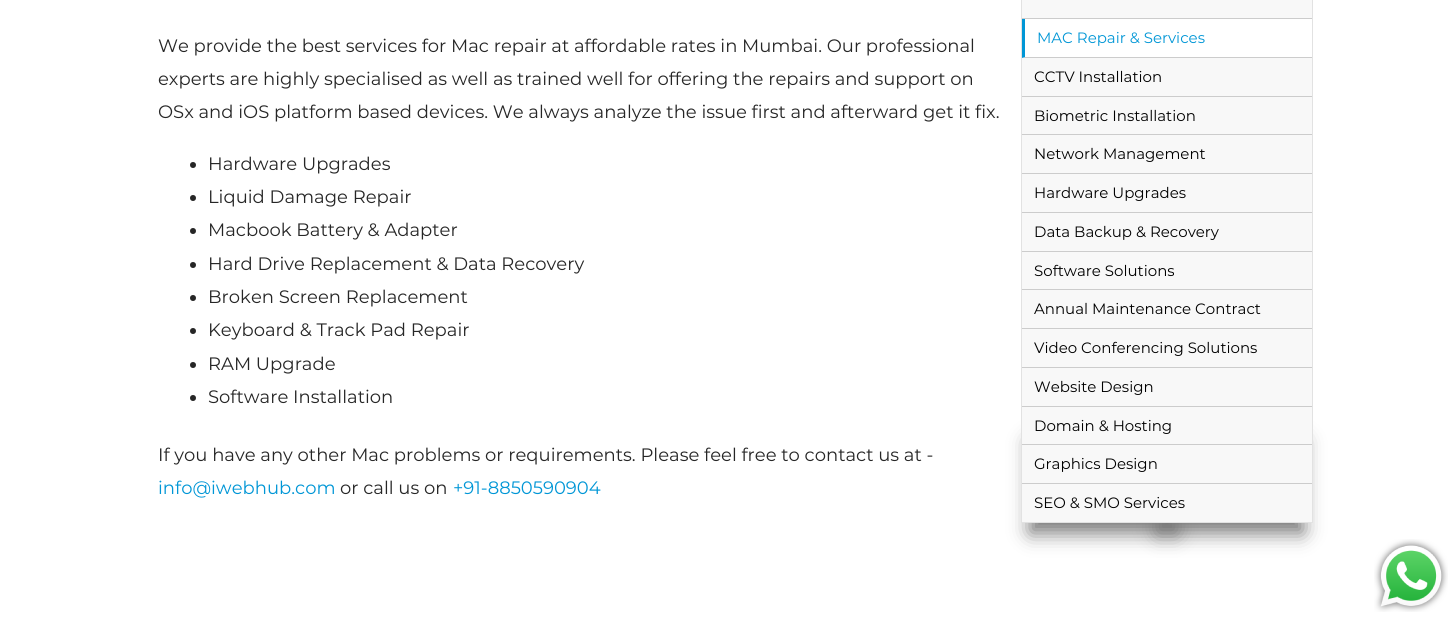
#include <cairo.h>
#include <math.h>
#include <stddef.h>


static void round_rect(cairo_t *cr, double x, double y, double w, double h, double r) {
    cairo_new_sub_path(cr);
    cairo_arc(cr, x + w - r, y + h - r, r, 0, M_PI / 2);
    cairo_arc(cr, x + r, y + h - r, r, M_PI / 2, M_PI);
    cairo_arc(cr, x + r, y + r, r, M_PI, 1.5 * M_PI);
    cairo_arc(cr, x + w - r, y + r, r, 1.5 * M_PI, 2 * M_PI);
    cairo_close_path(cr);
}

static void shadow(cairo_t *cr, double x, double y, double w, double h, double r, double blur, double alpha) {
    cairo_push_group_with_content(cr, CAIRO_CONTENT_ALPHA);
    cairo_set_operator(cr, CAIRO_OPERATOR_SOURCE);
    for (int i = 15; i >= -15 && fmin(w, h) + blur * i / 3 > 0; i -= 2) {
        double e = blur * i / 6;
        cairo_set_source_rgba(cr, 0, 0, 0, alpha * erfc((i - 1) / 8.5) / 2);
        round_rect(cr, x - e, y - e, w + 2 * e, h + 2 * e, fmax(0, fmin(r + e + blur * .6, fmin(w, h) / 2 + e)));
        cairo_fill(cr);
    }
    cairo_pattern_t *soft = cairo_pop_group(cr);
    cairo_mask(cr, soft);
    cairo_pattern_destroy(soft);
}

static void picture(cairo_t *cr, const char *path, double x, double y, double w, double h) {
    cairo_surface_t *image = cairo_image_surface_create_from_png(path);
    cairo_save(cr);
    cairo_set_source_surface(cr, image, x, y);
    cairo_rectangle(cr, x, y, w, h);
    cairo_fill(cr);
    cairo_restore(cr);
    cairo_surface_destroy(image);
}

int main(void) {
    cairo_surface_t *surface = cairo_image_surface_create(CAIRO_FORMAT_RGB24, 1456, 621);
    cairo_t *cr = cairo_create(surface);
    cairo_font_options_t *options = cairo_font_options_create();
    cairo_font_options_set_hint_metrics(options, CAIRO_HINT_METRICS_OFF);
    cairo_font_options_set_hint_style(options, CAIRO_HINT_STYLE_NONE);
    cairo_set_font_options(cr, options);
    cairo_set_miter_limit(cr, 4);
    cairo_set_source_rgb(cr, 1, 1, 1);
    cairo_paint(cr);
    cairo_select_font_face(cr, "Montserrat", CAIRO_FONT_SLANT_NORMAL, CAIRO_FONT_WEIGHT_NORMAL);
    cairo_set_font_size(cr, 18);
    cairo_set_source_rgb(cr, 0.149, 0.149, 0.149);
    cairo_move_to(cr, 158, 52);
    cairo_show_text(cr, "We provide the best services for Mac repair at affordable rates in Mumbai. Our professional");
    cairo_move_to(cr, 158, 85);
    cairo_show_text(cr, "experts are highly specialised as well as trained well for offering the repairs and support on");
    cairo_move_to(cr, 158, 118);
    cairo_show_text(cr, "OSx and iOS platform based devices. We always analyze the issue first and afterward get it fix.");
    cairo_new_path(cr);
    cairo_arc(cr, 193, 165, 3, 0, 2 * M_PI);
    cairo_fill(cr);
    cairo_move_to(cr, 208, 170);
    cairo_show_text(cr, "Hardware Upgrades");
    cairo_new_path(cr);
    cairo_arc(cr, 193, 198, 3, 0, 2 * M_PI);
    cairo_fill(cr);
    cairo_move_to(cr, 208, 203);
    cairo_show_text(cr, "Liquid Damage Repair");
    cairo_new_path(cr);
    cairo_arc(cr, 193, 231, 3, 0, 2 * M_PI);
    cairo_fill(cr);
    cairo_move_to(cr, 208, 236);
    cairo_show_text(cr, "Macbook Battery & Adapter");
    cairo_new_path(cr);
    cairo_arc(cr, 193, 265, 3, 0, 2 * M_PI);
    cairo_fill(cr);
    cairo_move_to(cr, 208, 270);
    cairo_show_text(cr, "Hard Drive Replacement & Data Recovery");
    cairo_new_path(cr);
    cairo_arc(cr, 193, 298, 3, 0, 2 * M_PI);
    cairo_fill(cr);
    cairo_move_to(cr, 208, 303);
    cairo_show_text(cr, "Broken Screen Replacement");
    cairo_new_path(cr);
    cairo_arc(cr, 193, 331, 3, 0, 2 * M_PI);
    cairo_fill(cr);
    cairo_move_to(cr, 208, 336);
    cairo_show_text(cr, "Keyboard & Track Pad Repair");
    cairo_new_path(cr);
    cairo_arc(cr, 193, 365, 3, 0, 2 * M_PI);
    cairo_fill(cr);
    cairo_move_to(cr, 208, 370);
    cairo_show_text(cr, "RAM Upgrade");
    cairo_new_path(cr);
    cairo_arc(cr, 193, 398, 3, 0, 2 * M_PI);
    cairo_fill(cr);
    cairo_move_to(cr, 208, 403);
    cairo_show_text(cr, "Software Installation");
    cairo_move_to(cr, 158, 461);
    cairo_show_text(cr, "If you have any other Mac problems or requirements. Please feel free to contact us at -");
    cairo_set_source_rgb(cr, 0, 0.588, 0.839);
    cairo_move_to(cr, 158, 494);
    cairo_show_text(cr, "info@iwebhub.com");
    cairo_set_source_rgb(cr, 0.149, 0.149, 0.149);
    cairo_move_to(cr, 340, 494);
    cairo_show_text(cr, "or call us on");
    cairo_set_source_rgb(cr, 0, 0.588, 0.839);
    cairo_move_to(cr, 453, 494);
    cairo_show_text(cr, "+91-8850590904");
    cairo_set_source_rgb(cr, 0.467, 0.467, 0.467);
    shadow(cr, 1030, 441, 147, 92, 0, 10, 1);
    shadow(cr, 1157, 441, 146, 92, 0, 10, 1);
    cairo_rectangle(cr, 1021.5, -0.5, 291, 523);
    cairo_set_source_rgb(cr, 0.886, 0.886, 0.886);
    cairo_set_line_width(cr, 1);
    cairo_stroke(cr);
    cairo_set_source_rgb(cr, 0.969, 0.969, 0.969);
    cairo_rectangle(cr, 1022, 0, 290, 18);
    cairo_fill(cr);
    cairo_set_source_rgb(cr, 0.8, 0.8, 0.8);
    cairo_rectangle(cr, 1022, 18, 290, 1);
    cairo_fill(cr);
    cairo_new_path(cr);
    cairo_move_to(cr, 1312, 58);
    cairo_line_to(cr, 1022, 58);
    cairo_line_to(cr, 1025, 57);
    cairo_line_to(cr, 1312, 57);
    cairo_close_path(cr);
    cairo_fill(cr);
    cairo_set_source_rgb(cr, 0, 0.588, 0.839);
    cairo_new_path(cr);
    cairo_move_to(cr, 1022, 58);
    cairo_line_to(cr, 1022, 19);
    cairo_line_to(cr, 1025, 19);
    cairo_line_to(cr, 1025, 57);
    cairo_close_path(cr);
    cairo_fill(cr);
    cairo_set_font_size(cr, 15);
    cairo_move_to(cr, 1037, 43);
    cairo_show_text(cr, "MAC Repair & Services");
    cairo_set_source_rgb(cr, 0.969, 0.969, 0.969);
    cairo_rectangle(cr, 1022, 58, 290, 38);
    cairo_fill(cr);
    cairo_set_source_rgb(cr, 0.8, 0.8, 0.8);
    cairo_rectangle(cr, 1022, 96, 290, 1);
    cairo_fill(cr);
    cairo_set_source_rgb(cr, 0, 0, 0);
    cairo_move_to(cr, 1034, 82);
    cairo_show_text(cr, "CCTV Installation");
    cairo_set_source_rgb(cr, 0.969, 0.969, 0.969);
    cairo_rectangle(cr, 1022, 97, 290, 37);
    cairo_fill(cr);
    cairo_set_source_rgb(cr, 0.8, 0.8, 0.8);
    cairo_rectangle(cr, 1022, 134, 290, 1);
    cairo_fill(cr);
    cairo_set_source_rgb(cr, 0, 0, 0);
    cairo_move_to(cr, 1034, 121);
    cairo_show_text(cr, "Biometric Installation");
    cairo_set_source_rgb(cr, 0.969, 0.969, 0.969);
    cairo_rectangle(cr, 1022, 135, 290, 38);
    cairo_fill(cr);
    cairo_set_source_rgb(cr, 0.8, 0.8, 0.8);
    cairo_rectangle(cr, 1022, 173, 290, 1);
    cairo_fill(cr);
    cairo_set_source_rgb(cr, 0, 0, 0);
    cairo_move_to(cr, 1034, 159);
    cairo_show_text(cr, "Network Management");
    cairo_set_source_rgb(cr, 0.969, 0.969, 0.969);
    cairo_rectangle(cr, 1022, 174, 290, 38);
    cairo_fill(cr);
    cairo_set_source_rgb(cr, 0.8, 0.8, 0.8);
    cairo_rectangle(cr, 1022, 212, 290, 1);
    cairo_fill(cr);
    cairo_set_source_rgb(cr, 0, 0, 0);
    cairo_move_to(cr, 1034, 198);
    cairo_show_text(cr, "Hardware Upgrades");
    cairo_set_source_rgb(cr, 0.969, 0.969, 0.969);
    cairo_rectangle(cr, 1022, 213, 290, 38);
    cairo_fill(cr);
    cairo_set_source_rgb(cr, 0.8, 0.8, 0.8);
    cairo_rectangle(cr, 1022, 251, 290, 1);
    cairo_fill(cr);
    cairo_set_source_rgb(cr, 0, 0, 0);
    cairo_move_to(cr, 1034, 237);
    cairo_show_text(cr, "Data Backup & Recovery");
    cairo_set_source_rgb(cr, 0.969, 0.969, 0.969);
    cairo_rectangle(cr, 1022, 252, 290, 37);
    cairo_fill(cr);
    cairo_set_source_rgb(cr, 0.8, 0.8, 0.8);
    cairo_rectangle(cr, 1022, 289, 290, 1);
    cairo_fill(cr);
    cairo_set_source_rgb(cr, 0, 0, 0);
    cairo_move_to(cr, 1034, 276);
    cairo_show_text(cr, "Software Solutions");
    cairo_set_source_rgb(cr, 0.969, 0.969, 0.969);
    cairo_rectangle(cr, 1022, 290, 290, 38);
    cairo_fill(cr);
    cairo_set_source_rgb(cr, 0.8, 0.8, 0.8);
    cairo_rectangle(cr, 1022, 328, 290, 1);
    cairo_fill(cr);
    cairo_set_source_rgb(cr, 0, 0, 0);
    cairo_move_to(cr, 1034, 314);
    cairo_show_text(cr, "Annual Maintenance Contract");
    cairo_set_source_rgb(cr, 0.969, 0.969, 0.969);
    cairo_rectangle(cr, 1022, 329, 290, 38);
    cairo_fill(cr);
    cairo_set_source_rgb(cr, 0.8, 0.8, 0.8);
    cairo_rectangle(cr, 1022, 367, 290, 1);
    cairo_fill(cr);
    cairo_set_source_rgb(cr, 0, 0, 0);
    cairo_move_to(cr, 1034, 353);
    cairo_show_text(cr, "Video Conferencing Solutions");
    cairo_set_source_rgb(cr, 0.969, 0.969, 0.969);
    cairo_rectangle(cr, 1022, 368, 290, 38);
    cairo_fill(cr);
    cairo_set_source_rgb(cr, 0.8, 0.8, 0.8);
    cairo_rectangle(cr, 1022, 406, 290, 1);
    cairo_fill(cr);
    cairo_set_source_rgb(cr, 0, 0, 0);
    cairo_move_to(cr, 1034, 392);
    cairo_show_text(cr, "Website Design");
    cairo_set_source_rgb(cr, 0.969, 0.969, 0.969);
    cairo_rectangle(cr, 1022, 407, 290, 37);
    cairo_fill(cr);
    cairo_set_source_rgb(cr, 0.8, 0.8, 0.8);
    cairo_rectangle(cr, 1022, 444, 290, 1);
    cairo_fill(cr);
    cairo_set_source_rgb(cr, 0, 0, 0);
    cairo_move_to(cr, 1034, 431);
    cairo_show_text(cr, "Domain & Hosting");
    cairo_set_source_rgb(cr, 0.969, 0.969, 0.969);
    cairo_rectangle(cr, 1022, 445, 290, 38);
    cairo_fill(cr);
    cairo_set_source_rgb(cr, 0.8, 0.8, 0.8);
    cairo_rectangle(cr, 1022, 483, 290, 1);
    cairo_fill(cr);
    cairo_set_source_rgb(cr, 0, 0, 0);
    cairo_move_to(cr, 1034, 469);
    cairo_show_text(cr, "Graphics Design");
    cairo_set_source_rgb(cr, 0.969, 0.969, 0.969);
    cairo_rectangle(cr, 1022, 484, 290, 38);
    cairo_fill(cr);
    cairo_set_source_rgb(cr, 0, 0, 0);
    cairo_move_to(cr, 1034, 508);
    cairo_show_text(cr, "SEO & SMO Services");
    picture(cr, "img1.png", 1374, 539, 74, 73);
    cairo_surface_write_to_png(surface, "page.png");
    cairo_font_options_destroy(options);
    cairo_destroy(cr);
    cairo_surface_destroy(surface);
    return 0;
}
